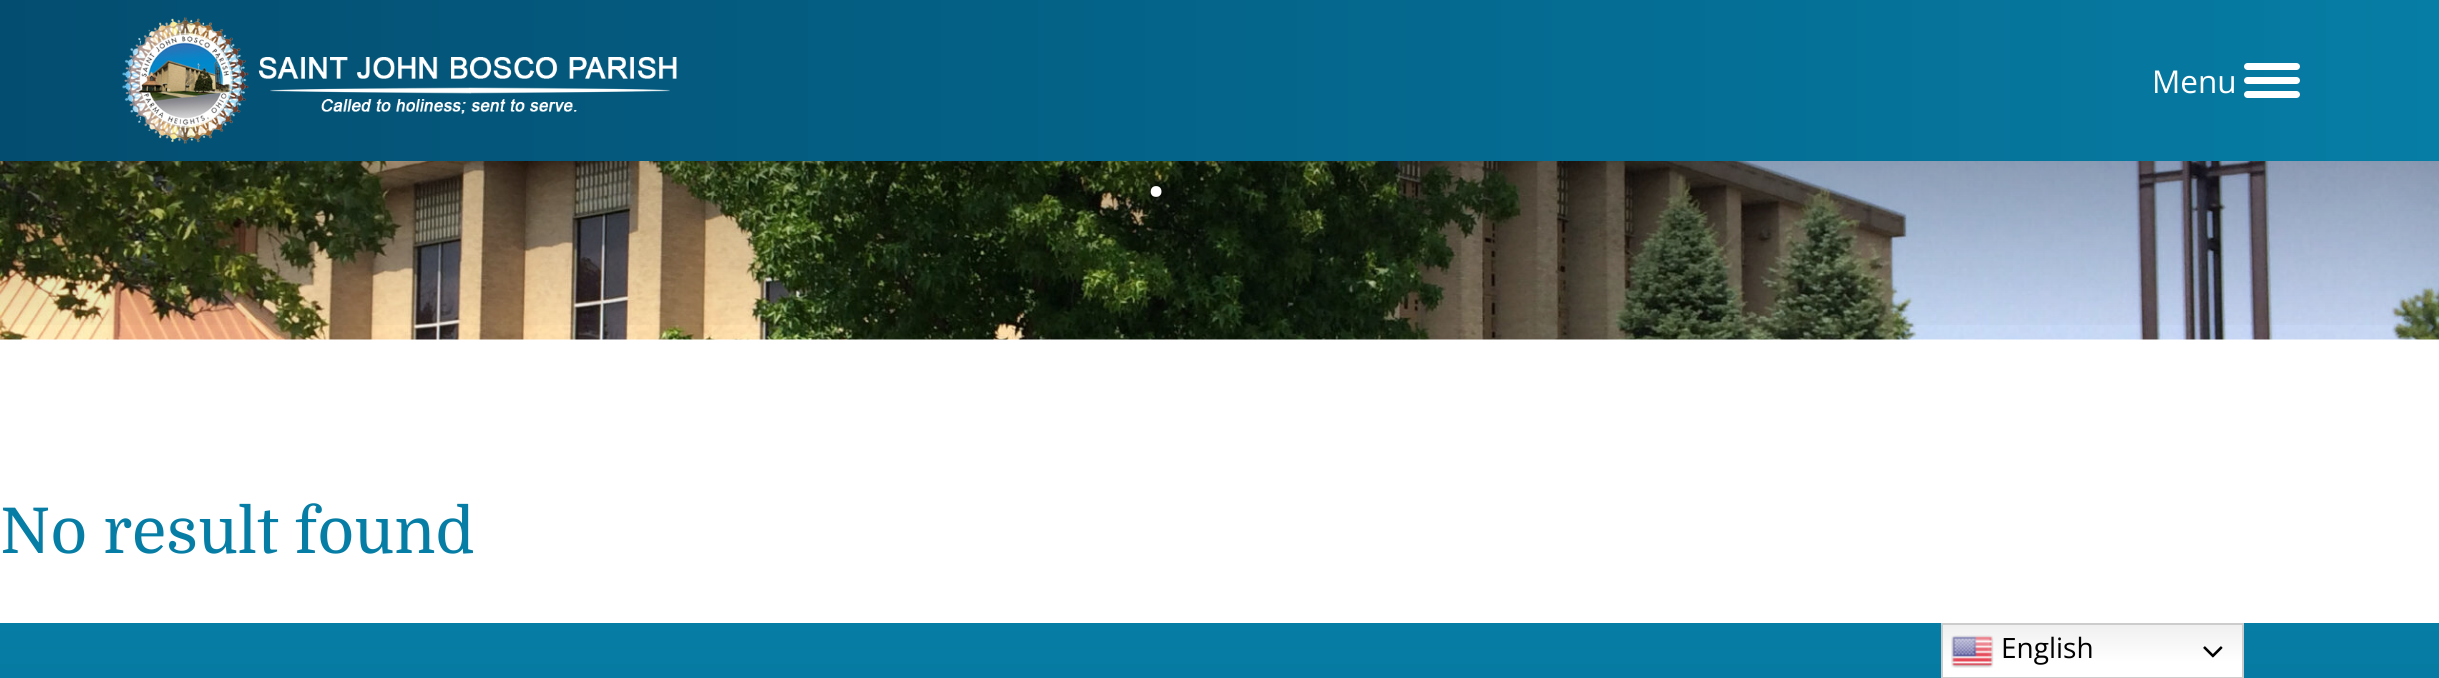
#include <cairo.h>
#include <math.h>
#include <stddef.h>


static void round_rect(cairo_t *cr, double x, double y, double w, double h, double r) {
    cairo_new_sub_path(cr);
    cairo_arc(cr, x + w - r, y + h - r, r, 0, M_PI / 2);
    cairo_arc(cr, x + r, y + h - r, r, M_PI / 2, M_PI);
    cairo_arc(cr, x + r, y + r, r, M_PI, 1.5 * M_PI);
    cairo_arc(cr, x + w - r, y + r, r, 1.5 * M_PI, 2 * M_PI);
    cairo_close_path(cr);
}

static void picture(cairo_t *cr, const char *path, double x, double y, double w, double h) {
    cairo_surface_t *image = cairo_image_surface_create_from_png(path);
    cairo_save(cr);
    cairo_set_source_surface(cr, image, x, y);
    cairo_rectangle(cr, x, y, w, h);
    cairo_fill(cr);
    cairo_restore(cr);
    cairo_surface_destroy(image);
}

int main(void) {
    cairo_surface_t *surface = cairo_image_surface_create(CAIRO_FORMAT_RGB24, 2439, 678);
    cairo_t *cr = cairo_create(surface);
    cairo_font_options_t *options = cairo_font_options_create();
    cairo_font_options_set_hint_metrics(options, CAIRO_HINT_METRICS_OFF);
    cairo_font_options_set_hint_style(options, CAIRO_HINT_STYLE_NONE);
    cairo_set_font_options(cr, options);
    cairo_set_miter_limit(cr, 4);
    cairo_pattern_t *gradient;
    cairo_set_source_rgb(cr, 1, 1, 1);
    cairo_paint(cr);
    gradient = cairo_pattern_create_linear(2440, 80, 0, 81);
    cairo_pattern_add_color_stop_rgba(gradient, 0, 0.024, 0.49, 0.647, 1);
    cairo_pattern_add_color_stop_rgba(gradient, 1, 0.012, 0.302, 0.439, 1);
    cairo_set_source(cr, gradient);
    cairo_pattern_destroy(gradient);
    cairo_rectangle(cr, 0, 0, 2439, 161);
    cairo_fill(cr);
    picture(cr, "img1.png", 122, 17, 555, 127);
    cairo_select_font_face(cr, "Open Sans", CAIRO_FONT_SLANT_NORMAL, CAIRO_FONT_WEIGHT_NORMAL);
    cairo_set_font_size(cr, 31.5);
    cairo_set_source_rgb(cr, 1, 1, 1);
    cairo_move_to(cr, 2152, 93);
    cairo_show_text(cr, "Menu");
    round_rect(cr, 2244, 63, 56, 7, 3.5);
    cairo_fill(cr);
    round_rect(cr, 2244, 77, 56, 7, 3.5);
    cairo_fill(cr);
    round_rect(cr, 2244, 91, 56, 7, 3.5);
    cairo_fill(cr);
    picture(cr, "img2.png", 0, 161, 2439, 179);
    gradient = cairo_pattern_create_linear(1220, 0, 1220, 340);
    cairo_pattern_add_color_stop_rgba(gradient, 0, 0, 0, 0, 0.5);
    cairo_pattern_add_color_stop_rgba(gradient, 1, 0, 0, 0, 0);
    cairo_set_source(cr, gradient);
    cairo_pattern_destroy(gradient);
    cairo_rectangle(cr, 0, 161, 2439, 164);
    cairo_fill(cr);
    cairo_select_font_face(cr, "Domine", CAIRO_FONT_SLANT_NORMAL, CAIRO_FONT_WEIGHT_NORMAL);
    cairo_set_font_size(cr, 84);
    cairo_set_source_rgb(cr, 1, 1, 1);
    cairo_move_to(cr, 1146, 196);
    cairo_show_text(cr, ".");
    cairo_set_font_size(cr, 63);
    cairo_set_source_rgb(cr, 0.024, 0.49, 0.647);
    cairo_move_to(cr, 0, 553);
    cairo_show_text(cr, "No result found");
    gradient = cairo_pattern_create_linear(1220, 623, 1220, 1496);
    cairo_pattern_add_color_stop_rgba(gradient, 0, 0.024, 0.49, 0.647, 1);
    cairo_pattern_add_color_stop_rgba(gradient, 1, 0.012, 0.302, 0.439, 1);
    cairo_set_source(cr, gradient);
    cairo_pattern_destroy(gradient);
    cairo_rectangle(cr, 0, 623, 2439, 55);
    cairo_fill(cr);
    gradient = cairo_pattern_create_linear(2092, 623, 2092, 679);
    cairo_pattern_add_color_stop_rgba(gradient, 0, 0.937, 0.937, 0.937, 1);
    cairo_pattern_add_color_stop_rgba(gradient, 0.7, 1, 1, 1, 1);
    cairo_set_source(cr, gradient);
    cairo_pattern_destroy(gradient);
    cairo_rectangle(cr, 1943, 625, 299, 52);
    cairo_fill(cr);
    cairo_rectangle(cr, 1942, 624, 301, 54);
    cairo_set_source_rgb(cr, 0.8, 0.8, 0.8);
    cairo_stroke(cr);
    picture(cr, "img3.png", 1951, 635, 43, 33);
    cairo_select_font_face(cr, "Open Sans", CAIRO_FONT_SLANT_NORMAL, CAIRO_FONT_WEIGHT_NORMAL);
    cairo_set_font_size(cr, 28);
    cairo_set_source_rgb(cr, 0, 0, 0);
    cairo_move_to(cr, 2001, 658);
    cairo_show_text(cr, "English");
    picture(cr, "img4.png", 2203, 646, 20, 12);
    cairo_surface_write_to_png(surface, "page.png");
    cairo_font_options_destroy(options);
    cairo_destroy(cr);
    cairo_surface_destroy(surface);
    return 0;
}
